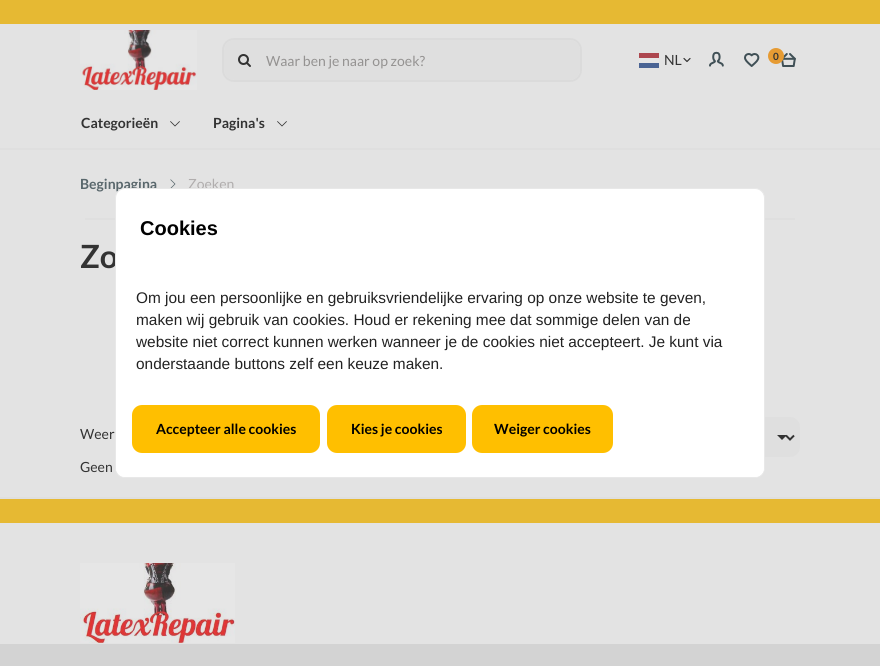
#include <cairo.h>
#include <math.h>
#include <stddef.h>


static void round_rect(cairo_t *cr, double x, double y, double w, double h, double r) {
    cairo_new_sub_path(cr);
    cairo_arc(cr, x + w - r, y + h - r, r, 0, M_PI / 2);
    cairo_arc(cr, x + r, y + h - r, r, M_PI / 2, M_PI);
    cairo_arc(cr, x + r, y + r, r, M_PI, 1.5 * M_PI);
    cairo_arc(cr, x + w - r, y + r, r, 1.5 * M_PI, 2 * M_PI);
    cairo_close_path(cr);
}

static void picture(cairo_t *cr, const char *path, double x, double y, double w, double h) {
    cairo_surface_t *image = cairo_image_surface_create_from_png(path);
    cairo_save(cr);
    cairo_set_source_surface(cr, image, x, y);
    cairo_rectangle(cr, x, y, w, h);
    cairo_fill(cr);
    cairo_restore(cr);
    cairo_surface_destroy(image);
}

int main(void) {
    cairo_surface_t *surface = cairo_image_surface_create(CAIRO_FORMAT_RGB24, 880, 666);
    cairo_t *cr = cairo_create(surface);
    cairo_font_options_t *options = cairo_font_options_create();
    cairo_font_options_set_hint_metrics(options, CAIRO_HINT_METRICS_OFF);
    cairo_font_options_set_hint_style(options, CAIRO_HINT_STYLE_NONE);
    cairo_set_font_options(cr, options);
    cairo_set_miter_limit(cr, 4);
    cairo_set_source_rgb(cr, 0.89, 0.89, 0.89);
    cairo_paint(cr);
    cairo_set_source_rgb(cr, 0.902, 0.725, 0.2);
    cairo_rectangle(cr, 0, 0, 880, 24);
    cairo_fill(cr);
    picture(cr, "img1.png", 80, 30, 117, 60);
    round_rect(cr, 223, 39, 358, 42, 11);
    cairo_set_source_rgb(cr, 0.859, 0.859, 0.859);
    cairo_stroke(cr);
    cairo_set_source_rgb(cr, 0.875, 0.875, 0.875);
    cairo_new_path(cr);
    cairo_move_to(cr, 234, 40);
    cairo_line_to(cr, 264, 40);
    cairo_line_to(cr, 264, 80);
    cairo_line_to(cr, 234, 80);
    cairo_curve_to(cr, 228.5, 80, 224, 75.5, 224, 70);
    cairo_line_to(cr, 224, 50);
    cairo_curve_to(cr, 224, 44.5, 228.5, 40, 234, 40);
    cairo_close_path(cr);
    cairo_fill(cr);
    picture(cr, "img2.png", 238, 54, 13, 13);
    cairo_new_path(cr);
    cairo_move_to(cr, 264, 40);
    cairo_line_to(cr, 570, 40);
    cairo_curve_to(cr, 575.5, 40, 580, 44.5, 580, 50);
    cairo_line_to(cr, 580, 70);
    cairo_curve_to(cr, 580, 75.5, 575.5, 80, 570, 80);
    cairo_line_to(cr, 264, 80);
    cairo_close_path(cr);
    cairo_fill(cr);
    cairo_select_font_face(cr, "Lato", CAIRO_FONT_SLANT_NORMAL, CAIRO_FONT_WEIGHT_NORMAL);
    cairo_set_font_size(cr, 14);
    cairo_set_source_rgb(cr, 0.58, 0.573, 0.569);
    cairo_move_to(cr, 266, 66);
    cairo_show_text(cr, "Waar ben je naar op zoek?");
    cairo_set_source_rgb(cr, 0.678, 0.278, 0.31);
    cairo_rectangle(cr, 639, 53, 20, 5);
    cairo_fill(cr);
    cairo_set_source_rgb(cr, 0.902, 0.902, 0.902);
    cairo_rectangle(cr, 639, 58, 20, 5);
    cairo_fill(cr);
    cairo_set_source_rgb(cr, 0.29, 0.392, 0.58);
    cairo_rectangle(cr, 639, 63, 20, 5);
    cairo_fill(cr);
    cairo_set_source_rgb(cr, 0.2, 0.2, 0.2);
    cairo_move_to(cr, 664, 65);
    cairo_show_text(cr, "NL");
    cairo_new_path(cr);
    cairo_move_to(cr, 690, 58.5);
    cairo_line_to(cr, 687, 61.5);
    cairo_line_to(cr, 684, 58.5);
    cairo_set_line_width(cr, 1.2);
    cairo_set_line_cap(cr, CAIRO_LINE_CAP_ROUND);
    cairo_set_line_join(cr, CAIRO_LINE_JOIN_ROUND);
    cairo_stroke(cr);
    picture(cr, "img3.png", 709, 51, 15, 16);
    picture(cr, "img4.png", 744, 53, 16, 14);
    picture(cr, "img5.png", 781, 53, 15, 14);
    cairo_set_source_rgb(cr, 0.902, 0.608, 0.2);
    cairo_arc(cr, 776, 56, 8, 0, 2 * M_PI);
    cairo_fill(cr);
    cairo_select_font_face(cr, "Lato", CAIRO_FONT_SLANT_NORMAL, CAIRO_FONT_WEIGHT_BOLD);
    cairo_set_font_size(cr, 10);
    cairo_set_source_rgb(cr, 0.2, 0.2, 0.2);
    cairo_move_to(cr, 773, 60);
    cairo_show_text(cr, "0");
    cairo_set_source_rgb(cr, 0.875, 0.875, 0.875);
    cairo_rectangle(cr, 0, 148, 880, 2);
    cairo_fill(cr);
    cairo_set_font_size(cr, 14);
    cairo_set_source_rgb(cr, 0.2, 0.2, 0.2);
    cairo_move_to(cr, 81, 128);
    cairo_show_text(cr, "Categorieën");
    picture(cr, "img6.png", 170, 121, 10, 6);
    cairo_move_to(cr, 213, 128);
    cairo_show_text(cr, "Pagina's");
    picture(cr, "img6.png", 277, 121, 10, 6);
    cairo_set_source_rgb(cr, 0.875, 0.875, 0.875);
    cairo_rectangle(cr, 85, 218, 710, 2);
    cairo_fill(cr);
    cairo_set_source_rgb(cr, 0.349, 0.404, 0.424);
    cairo_move_to(cr, 80, 189);
    cairo_show_text(cr, "Beginpagina");
    picture(cr, "img7.png", 170, 179, 6, 9);
    cairo_select_font_face(cr, "Lato", CAIRO_FONT_SLANT_NORMAL, CAIRO_FONT_WEIGHT_NORMAL);
    cairo_set_source_rgb(cr, 0.69, 0.678, 0.678);
    cairo_move_to(cr, 188, 189);
    cairo_show_text(cr, "Zoeken");
    cairo_select_font_face(cr, "Lato", CAIRO_FONT_SLANT_NORMAL, CAIRO_FONT_WEIGHT_BOLD);
    cairo_set_font_size(cr, 32);
    cairo_set_source_rgb(cr, 0.2, 0.2, 0.2);
    cairo_move_to(cr, 80, 268);
    cairo_show_text(cr, "Zo");
    cairo_select_font_face(cr, "Lato", CAIRO_FONT_SLANT_NORMAL, CAIRO_FONT_WEIGHT_NORMAL);
    cairo_set_font_size(cr, 14);
    cairo_move_to(cr, 80, 439);
    cairo_show_text(cr, "Weer");
    cairo_set_source_rgb(cr, 0.875, 0.875, 0.875);
    round_rect(cr, 581, 417, 219, 40, 10);
    cairo_fill(cr);
    cairo_set_source_rgb(cr, 0.2, 0.2, 0.2);
    cairo_new_path(cr);
    cairo_move_to(cr, 777, 435);
    cairo_line_to(cr, 782, 440);
    cairo_line_to(cr, 787, 435);
    cairo_close_path(cr);
    cairo_fill(cr);
    cairo_new_path(cr);
    cairo_move_to(cr, 786, 435.5);
    cairo_line_to(cr, 790, 439.5);
    cairo_line_to(cr, 794, 435.5);
    cairo_set_line_width(cr, 2);
    cairo_set_line_cap(cr, CAIRO_LINE_CAP_BUTT);
    cairo_set_line_join(cr, CAIRO_LINE_JOIN_MITER);
    cairo_stroke(cr);
    cairo_move_to(cr, 80, 472);
    cairo_show_text(cr, "Geen");
    cairo_set_source_rgb(cr, 1, 1, 1);
    round_rect(cr, 115.5, 188.5, 649, 289, 9.5);
    cairo_fill_preserve(cr);
    cairo_set_source_rgb(cr, 0.91, 0.91, 0.91);
    cairo_set_line_width(cr, 1);
    cairo_stroke(cr);
    cairo_select_font_face(cr, "Liberation Sans", CAIRO_FONT_SLANT_NORMAL, CAIRO_FONT_WEIGHT_BOLD);
    cairo_set_font_size(cr, 20);
    cairo_set_source_rgb(cr, 0, 0, 0);
    cairo_move_to(cr, 140, 235);
    cairo_show_text(cr, "Cookies");
    cairo_select_font_face(cr, "Liberation Sans", CAIRO_FONT_SLANT_NORMAL, CAIRO_FONT_WEIGHT_NORMAL);
    cairo_set_font_size(cr, 15.4);
    cairo_set_source_rgb(cr, 0.133, 0.133, 0.133);
    cairo_move_to(cr, 136, 303);
    cairo_show_text(cr, "Om jou een persoonlijke en gebruiksvriendelijke ervaring op onze website te geven,");
    cairo_move_to(cr, 136, 325);
    cairo_show_text(cr, "maken wij gebruik van cookies. Houd er rekening mee dat sommige delen van de");
    cairo_move_to(cr, 136, 347);
    cairo_show_text(cr, "website niet correct kunnen werken wanneer je de cookies niet accepteert. Je kunt via");
    cairo_move_to(cr, 136, 369);
    cairo_show_text(cr, "onderstaande buttons zelf een keuze maken.");
    cairo_set_source_rgb(cr, 1, 1, 1);
    cairo_new_path(cr);
    cairo_move_to(cr, 116, 385);
    cairo_line_to(cr, 764, 385);
    cairo_line_to(cr, 764, 468);
    cairo_curve_to(cr, 764, 473, 760, 477, 755, 477);
    cairo_line_to(cr, 125, 477);
    cairo_curve_to(cr, 120, 477, 116, 473, 116, 468);
    cairo_close_path(cr);
    cairo_fill(cr);
    cairo_set_source_rgb(cr, 1, 0.749, 0);
    round_rect(cr, 132, 405, 188, 48, 10);
    cairo_fill(cr);
    cairo_select_font_face(cr, "Lato", CAIRO_FONT_SLANT_NORMAL, CAIRO_FONT_WEIGHT_BOLD);
    cairo_set_font_size(cr, 14);
    cairo_set_source_rgb(cr, 0, 0, 0);
    cairo_move_to(cr, 156, 434);
    cairo_show_text(cr, "Accepteer alle cookies");
    cairo_set_source_rgb(cr, 1, 0.749, 0);
    round_rect(cr, 327, 405, 139, 48, 10);
    cairo_fill(cr);
    cairo_set_source_rgb(cr, 0, 0, 0);
    cairo_move_to(cr, 351, 434);
    cairo_show_text(cr, "Kies je cookies");
    cairo_set_source_rgb(cr, 1, 0.749, 0);
    round_rect(cr, 472, 405, 141, 48, 10);
    cairo_fill(cr);
    cairo_set_source_rgb(cr, 0, 0, 0);
    cairo_move_to(cr, 494, 434);
    cairo_show_text(cr, "Weiger cookies");
    cairo_set_source_rgb(cr, 0.875, 0.875, 0.875);
    cairo_rectangle(cr, 0, 497, 880, 2);
    cairo_fill(cr);
    cairo_set_source_rgb(cr, 0.902, 0.725, 0.2);
    cairo_rectangle(cr, 0, 499, 880, 24);
    cairo_fill(cr);
    picture(cr, "img8.png", 80, 563, 155, 80);
    cairo_set_source_rgb(cr, 0.827, 0.827, 0.827);
    cairo_rectangle(cr, 0, 644, 880, 22);
    cairo_fill(cr);
    cairo_surface_write_to_png(surface, "page.png");
    cairo_font_options_destroy(options);
    cairo_destroy(cr);
    cairo_surface_destroy(surface);
    return 0;
}
